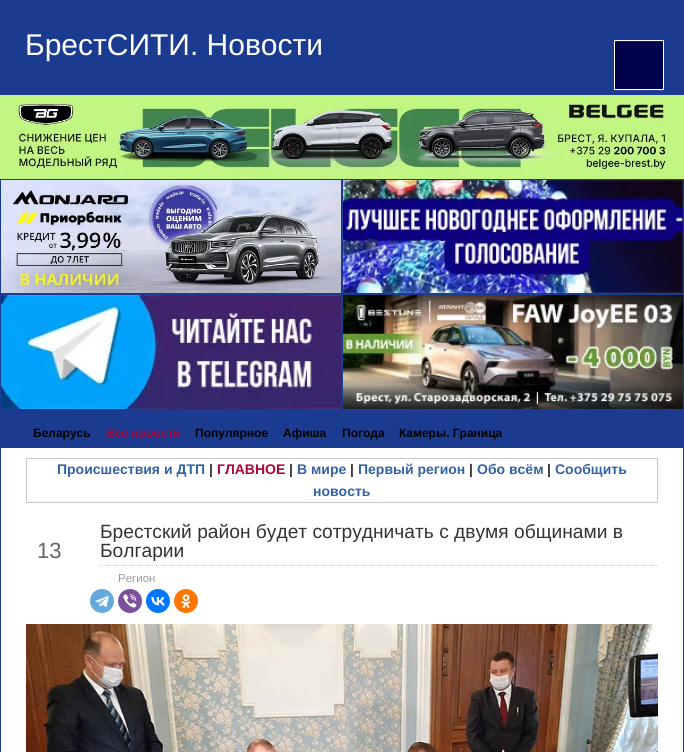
#include <cairo.h>
#include <math.h>
#include <stddef.h>


static void picture(cairo_t *cr, const char *path, double x, double y, double w, double h) {
    cairo_surface_t *image = cairo_image_surface_create_from_png(path);
    cairo_save(cr);
    cairo_set_source_surface(cr, image, x, y);
    cairo_rectangle(cr, x, y, w, h);
    cairo_fill(cr);
    cairo_restore(cr);
    cairo_surface_destroy(image);
}

int main(void) {
    cairo_surface_t *surface = cairo_image_surface_create(CAIRO_FORMAT_RGB24, 684, 752);
    cairo_t *cr = cairo_create(surface);
    cairo_font_options_t *options = cairo_font_options_create();
    cairo_font_options_set_hint_metrics(options, CAIRO_HINT_METRICS_OFF);
    cairo_font_options_set_hint_style(options, CAIRO_HINT_STYLE_NONE);
    cairo_set_font_options(cr, options);
    cairo_set_miter_limit(cr, 4);
    cairo_set_source_rgb(cr, 0.106, 0.231, 0.565);
    cairo_paint(cr);
    cairo_select_font_face(cr, "Liberation Sans", CAIRO_FONT_SLANT_NORMAL, CAIRO_FONT_WEIGHT_NORMAL);
    cairo_set_font_size(cr, 30);
    cairo_set_source_rgb(cr, 1, 1, 1);
    cairo_move_to(cr, 25, 55);
    cairo_show_text(cr, "БрестСИТИ. Новости");
    cairo_set_source_rgb(cr, 0.173, 0.29, 0.596);
    cairo_rectangle(cr, 614, 90, 50, 1);
    cairo_fill(cr);
    cairo_set_source_rgb(cr, 0, 0.008, 0.294);
    cairo_rectangle(cr, 615, 42, 48, 47);
    cairo_fill(cr);
    cairo_set_source_rgb(cr, 0.102, 0.106, 0.365);
    cairo_rectangle(cr, 615, 41, 48, 1);
    cairo_fill(cr);
    cairo_rectangle(cr, 614.5, 40.5, 49, 49);
    cairo_set_source_rgb(cr, 1, 1, 1);
    cairo_set_line_width(cr, 1);
    cairo_stroke(cr);
    picture(cr, "img1.png", 0, 95, 684, 84);
    picture(cr, "img2.png", 1, 180, 340, 113);
    picture(cr, "img3.png", 343, 180, 340, 113);
    picture(cr, "img4.png", 1, 295, 340, 114);
    picture(cr, "img5.png", 343, 295, 340, 114);
    cairo_select_font_face(cr, "Liberation Sans", CAIRO_FONT_SLANT_NORMAL, CAIRO_FONT_WEIGHT_BOLD);
    cairo_set_font_size(cr, 12);
    cairo_set_source_rgb(cr, 0, 0, 0);
    cairo_move_to(cr, 33, 437);
    cairo_show_text(cr, "Беларусь");
    cairo_set_source_rgb(cr, 0.667, 0.035, 0.227);
    cairo_move_to(cr, 106, 437);
    cairo_show_text(cr, "Все новости");
    cairo_set_source_rgb(cr, 0, 0, 0);
    cairo_move_to(cr, 195, 437);
    cairo_show_text(cr, "Популярное");
    cairo_move_to(cr, 283, 437);
    cairo_show_text(cr, "Афиша");
    cairo_move_to(cr, 342, 437);
    cairo_show_text(cr, "Погода");
    cairo_move_to(cr, 399, 437);
    cairo_show_text(cr, "Камеры. Граница");
    cairo_set_source_rgb(cr, 1, 1, 1);
    cairo_rectangle(cr, 1, 448, 682, 304);
    cairo_fill(cr);
    cairo_rectangle(cr, 26.5, 458.5, 631, 44);
    cairo_set_source_rgb(cr, 0.792, 0.788, 0.788);
    cairo_stroke(cr);
    cairo_set_font_size(cr, 14);
    cairo_set_source_rgb(cr, 0.2, 0.388, 0.639);
    cairo_move_to(cr, 57, 474);
    cairo_show_text(cr, "Происшествия и ДТП");
    cairo_set_source_rgb(cr, 0.2, 0.2, 0.2);
    cairo_move_to(cr, 209, 474);
    cairo_show_text(cr, "|");
    cairo_set_source_rgb(cr, 0.667, 0.035, 0.227);
    cairo_move_to(cr, 217, 474);
    cairo_show_text(cr, "ГЛАВНОЕ");
    cairo_set_source_rgb(cr, 0.2, 0.2, 0.2);
    cairo_move_to(cr, 289, 474);
    cairo_show_text(cr, "|");
    cairo_set_source_rgb(cr, 0.2, 0.388, 0.639);
    cairo_move_to(cr, 297, 474);
    cairo_show_text(cr, "В мире");
    cairo_set_source_rgb(cr, 0.2, 0.2, 0.2);
    cairo_move_to(cr, 350, 474);
    cairo_show_text(cr, "|");
    cairo_set_source_rgb(cr, 0.2, 0.388, 0.639);
    cairo_move_to(cr, 358, 474);
    cairo_show_text(cr, "Первый регион");
    cairo_set_source_rgb(cr, 0.2, 0.2, 0.2);
    cairo_move_to(cr, 469, 474);
    cairo_show_text(cr, "|");
    cairo_set_source_rgb(cr, 0.2, 0.388, 0.639);
    cairo_move_to(cr, 477, 474);
    cairo_show_text(cr, "Обо всём");
    cairo_set_source_rgb(cr, 0.2, 0.2, 0.2);
    cairo_move_to(cr, 547, 474);
    cairo_show_text(cr, "|");
    cairo_set_source_rgb(cr, 0.2, 0.388, 0.639);
    cairo_move_to(cr, 555, 474);
    cairo_show_text(cr, "Сообщить");
    cairo_move_to(cr, 313, 496);
    cairo_show_text(cr, "новость");
    cairo_select_font_face(cr, "Liberation Sans", CAIRO_FONT_SLANT_NORMAL, CAIRO_FONT_WEIGHT_NORMAL);
    cairo_set_font_size(cr, 22);
    cairo_set_source_rgb(cr, 0.4, 0.4, 0.4);
    cairo_move_to(cr, 37, 558);
    cairo_show_text(cr, "13");
    cairo_save(cr);
    cairo_rectangle(cr, 26, 518, 632, 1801);
    cairo_clip(cr);
    cairo_new_path(cr);
    cairo_move_to(cr, 100, 565.5);
    cairo_line_to(cr, 667, 565.5);
    cairo_set_source_rgb(cr, 0.8, 0.8, 0.8);
    cairo_set_dash(cr, (double[]){1, 1}, 2, 0);
    cairo_stroke(cr);
    cairo_restore(cr);
    cairo_set_font_size(cr, 19.2);
    cairo_set_source_rgb(cr, 0.2, 0.2, 0.2);
    cairo_move_to(cr, 100, 538);
    cairo_show_text(cr, "Брестский район будет сотрудничать с двумя общинами в");
    cairo_move_to(cr, 100, 557);
    cairo_show_text(cr, "Болгарии");
    cairo_set_font_size(cr, 11.5);
    cairo_set_source_rgb(cr, 0.6, 0.6, 0.6);
    cairo_move_to(cr, 118, 582);
    cairo_show_text(cr, "Регион");
    cairo_set_source_rgb(cr, 0.392, 0.663, 0.863);
    cairo_new_path(cr);
    cairo_arc(cr, 102, 601, 12, 0, 2 * M_PI);
    cairo_fill(cr);
    picture(cr, "img6.png", 95, 596, 14, 12);
    cairo_set_source_rgb(cr, 0.482, 0.318, 0.616);
    cairo_arc(cr, 130, 601, 12, 0, 2 * M_PI);
    cairo_fill(cr);
    picture(cr, "img7.png", 123, 594, 14, 14);
    cairo_set_source_rgb(cr, 0, 0.467, 1);
    cairo_arc(cr, 158, 601, 12, 0, 2 * M_PI);
    cairo_fill(cr);
    picture(cr, "img8.png", 151, 597, 14, 9);
    cairo_set_source_rgb(cr, 1, 0.467, 0);
    cairo_arc(cr, 186, 601, 12, 0, 2 * M_PI);
    cairo_fill(cr);
    picture(cr, "img9.png", 181, 594, 10, 14);
    picture(cr, "img10.png", 26, 624, 632, 128);
    cairo_surface_write_to_png(surface, "page.png");
    cairo_font_options_destroy(options);
    cairo_destroy(cr);
    cairo_surface_destroy(surface);
    return 0;
}
